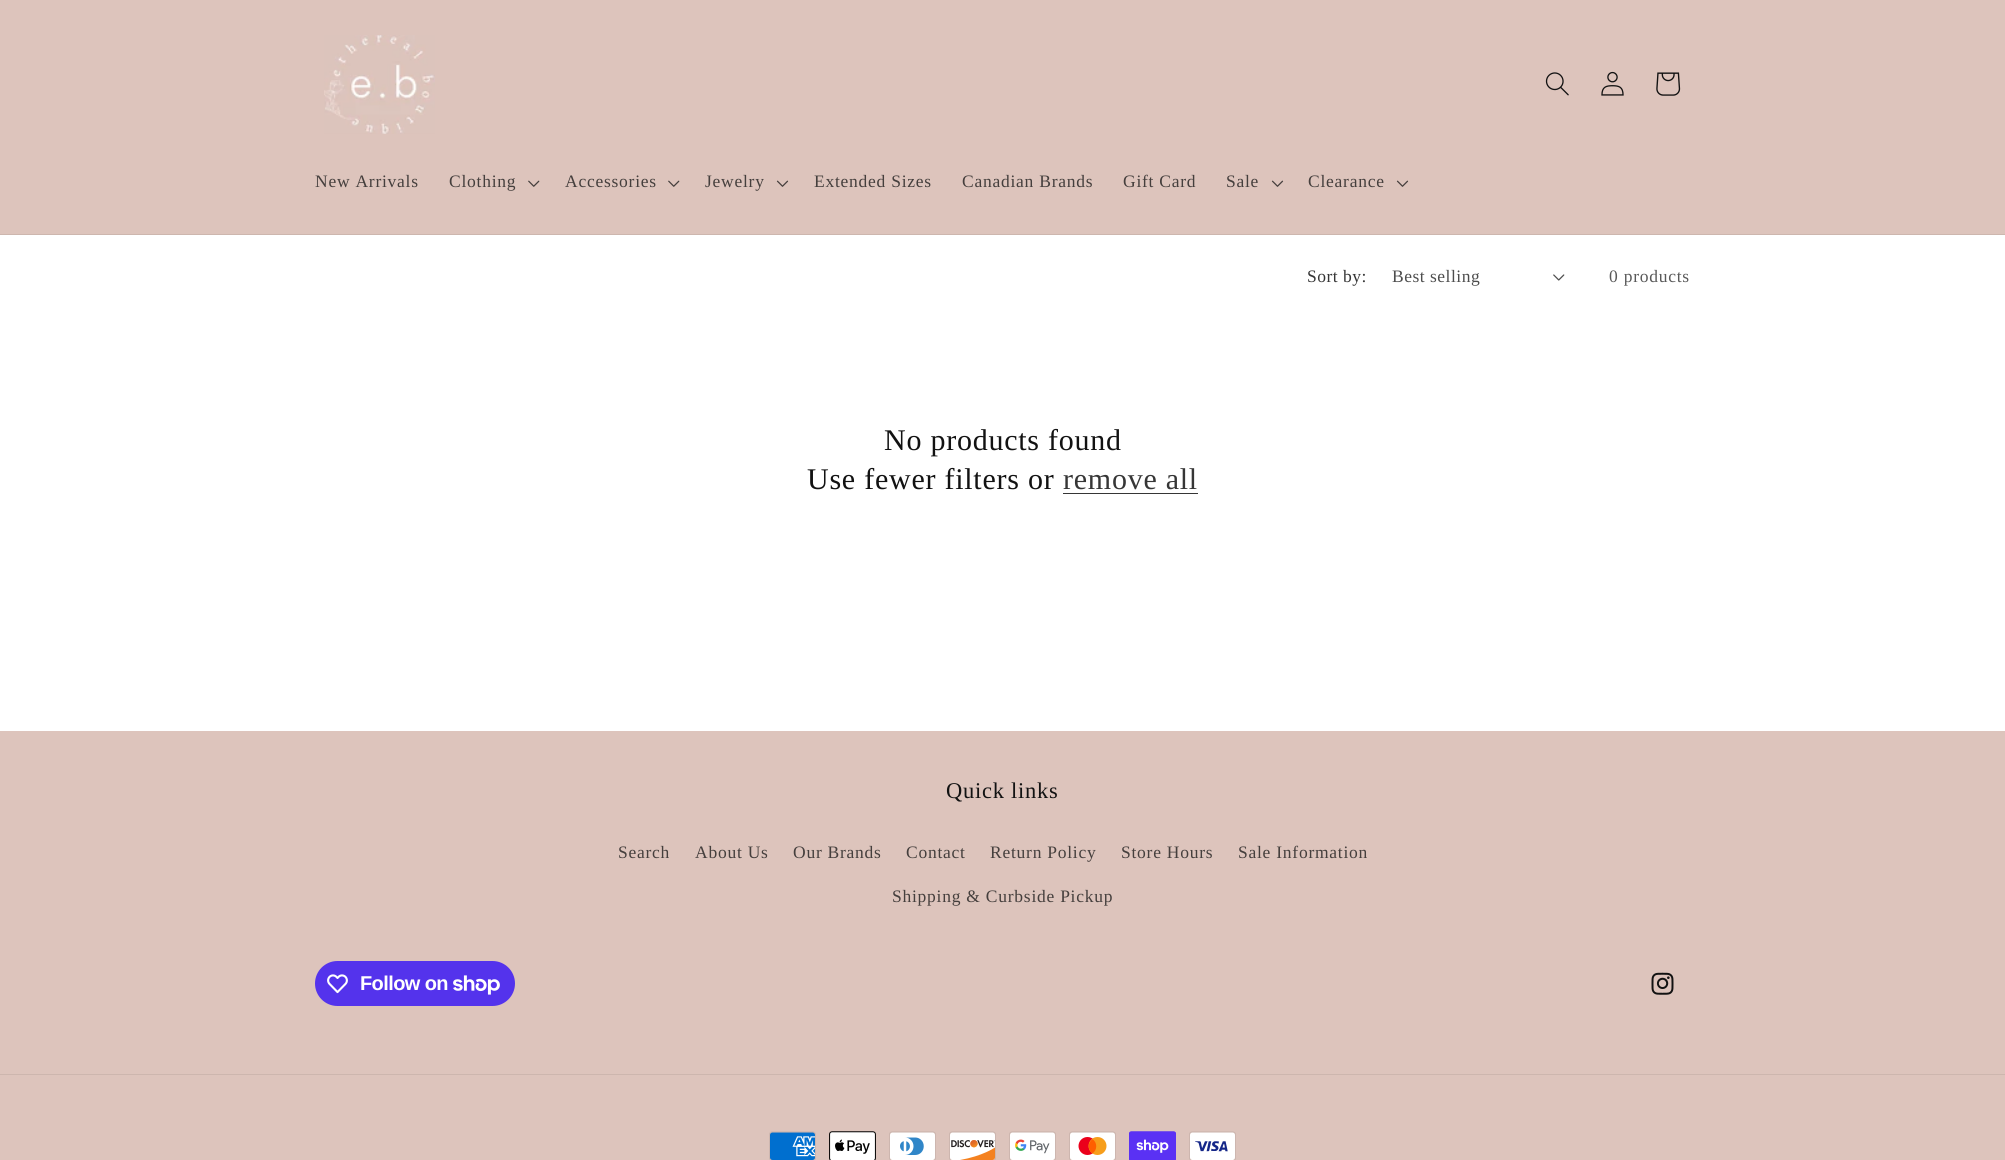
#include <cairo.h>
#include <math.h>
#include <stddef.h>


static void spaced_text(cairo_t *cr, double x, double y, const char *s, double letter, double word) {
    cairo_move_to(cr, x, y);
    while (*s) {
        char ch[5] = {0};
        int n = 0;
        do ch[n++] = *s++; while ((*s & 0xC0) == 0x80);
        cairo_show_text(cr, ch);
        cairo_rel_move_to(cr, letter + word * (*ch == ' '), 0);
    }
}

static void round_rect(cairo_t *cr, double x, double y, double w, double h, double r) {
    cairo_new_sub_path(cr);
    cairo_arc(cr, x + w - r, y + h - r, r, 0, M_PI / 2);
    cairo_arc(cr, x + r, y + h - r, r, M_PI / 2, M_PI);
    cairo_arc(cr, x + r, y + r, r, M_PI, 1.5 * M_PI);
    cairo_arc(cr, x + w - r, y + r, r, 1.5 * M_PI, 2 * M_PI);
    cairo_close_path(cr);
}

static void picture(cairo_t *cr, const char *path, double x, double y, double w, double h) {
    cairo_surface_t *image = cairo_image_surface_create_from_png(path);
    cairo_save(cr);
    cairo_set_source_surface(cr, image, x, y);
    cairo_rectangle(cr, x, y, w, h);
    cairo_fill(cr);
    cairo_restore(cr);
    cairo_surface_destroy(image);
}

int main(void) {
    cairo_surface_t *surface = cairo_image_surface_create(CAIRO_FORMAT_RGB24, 2005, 1160);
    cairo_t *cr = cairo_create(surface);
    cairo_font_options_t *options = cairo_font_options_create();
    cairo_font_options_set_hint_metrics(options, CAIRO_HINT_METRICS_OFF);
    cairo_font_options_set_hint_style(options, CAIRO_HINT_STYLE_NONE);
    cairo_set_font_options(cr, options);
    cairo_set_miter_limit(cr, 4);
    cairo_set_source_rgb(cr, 1, 1, 1);
    cairo_paint(cr);
    cairo_set_source_rgb(cr, 0.867, 0.769, 0.737);
    cairo_rectangle(cr, 0, 0, 2005, 234);
    cairo_fill(cr);
    cairo_set_source_rgb(cr, 0.804, 0.714, 0.682);
    cairo_rectangle(cr, 0, 234, 2005, 1);
    cairo_fill(cr);
    picture(cr, "img1.png", 324, 35, 111, 99);
    picture(cr, "img2.png", 1545, 72, 24, 24);
    picture(cr, "img3.png", 1601, 71, 23, 25);
    picture(cr, "img4.png", 1656, 72, 25, 24);
    cairo_select_font_face(cr, "Liberation Serif", CAIRO_FONT_SLANT_NORMAL, CAIRO_FONT_WEIGHT_NORMAL);
    cairo_set_font_size(cr, 17.5);
    cairo_set_source_rgb(cr, 0.271, 0.247, 0.239);
    spaced_text(cr, 315, 187, "New Arrivals", 0.75, 0);
    spaced_text(cr, 449, 187, "Clothing", 0.75, 0);
    picture(cr, "img5.png", 528, 180, 12, 7);
    spaced_text(cr, 565, 187, "Accessories", 0.75, 0);
    picture(cr, "img5.png", 668, 180, 12, 7);
    spaced_text(cr, 705, 187, "Jewelry", 0.75, 0);
    picture(cr, "img6.png", 776, 180, 13, 7);
    spaced_text(cr, 814, 187, "Extended Sizes", 0.75, 0);
    spaced_text(cr, 962, 187, "Canadian Brands", 0.75, 0);
    spaced_text(cr, 1123, 187, "Gift Card", 0.75, 0);
    spaced_text(cr, 1226, 187, "Sale", 0.75, 0);
    picture(cr, "img6.png", 1271, 180, 13, 7);
    spaced_text(cr, 1308, 187, "Clearance", 0.75, 0);
    picture(cr, "img6.png", 1396, 180, 13, 7);
    cairo_set_source_rgb(cr, 0.212, 0.212, 0.212);
    spaced_text(cr, 1307, 282, "Sort by:", 0.5, 0);
    cairo_set_source_rgb(cr, 0.302, 0.302, 0.302);
    spaced_text(cr, 1392, 282, "Best selling", 0.5, 0);
    picture(cr, "img7.png", 1553, 274, 12, 7);
    cairo_set_source_rgb(cr, 0.349, 0.349, 0.349);
    spaced_text(cr, 1609, 282, "0 products", 0.75, 0);
    cairo_set_font_size(cr, 30);
    cairo_set_source_rgb(cr, 0.071, 0.071, 0.071);
    spaced_text(cr, 884, 450, "No products found", 0.75, 0);
    spaced_text(cr, 807, 489, "Use fewer filters or", 0.75, 0);
    cairo_set_source_rgb(cr, 0.212, 0.212, 0.212);
    spaced_text(cr, 1063, 489, "remove all", 0.75, 0);
    cairo_rectangle(cr, 1063, 493, 135, 1);
    cairo_fill(cr);
    cairo_set_source_rgb(cr, 0.867, 0.769, 0.737);
    cairo_rectangle(cr, 0, 731, 2005, 429);
    cairo_fill(cr);
    cairo_set_font_size(cr, 22.5);
    cairo_set_source_rgb(cr, 0.071, 0.071, 0.071);
    spaced_text(cr, 946, 798, "Quick links", 0.75, 0);
    cairo_set_font_size(cr, 17.5);
    cairo_set_source_rgb(cr, 0.271, 0.247, 0.239);
    spaced_text(cr, 618, 858, "Search", 0.75, 0);
    spaced_text(cr, 695, 858, "About Us", 0.75, 0);
    spaced_text(cr, 793, 858, "Our Brands", 0.75, 0);
    spaced_text(cr, 906, 858, "Contact", 0.75, 0);
    spaced_text(cr, 990, 858, "Return Policy", 0.75, 0);
    spaced_text(cr, 1121, 858, "Store Hours", 0.75, 0);
    spaced_text(cr, 1238, 858, "Sale Information", 0.75, 0);
    spaced_text(cr, 892, 902, "Shipping & Curbside Pickup", 0.75, 0);
    cairo_set_source_rgb(cr, 0.329, 0.2, 0.922);
    round_rect(cr, 315, 961, 200, 45, 22.5);
    cairo_fill(cr);
    picture(cr, "img8.png", 327, 974, 21, 20);
    cairo_select_font_face(cr, "Liberation Sans", CAIRO_FONT_SLANT_NORMAL, CAIRO_FONT_WEIGHT_BOLD);
    cairo_set_font_size(cr, 20);
    cairo_set_source_rgb(cr, 1, 1, 1);
    spaced_text(cr, 360, 990, "Follow on", -0.6, 0);
    picture(cr, "img9.png", 453, 975, 47, 20);
    picture(cr, "img10.png", 1651, 972, 23, 23);
    cairo_set_source_rgb(cr, 0.804, 0.714, 0.682);
    cairo_rectangle(cr, 0, 1074, 2005, 1);
    cairo_fill(cr);
    picture(cr, "img11.png", 769, 1131, 47, 29);
    picture(cr, "img12.png", 829, 1131, 47, 29);
    picture(cr, "img13.png", 889, 1131, 47, 29);
    picture(cr, "img14.png", 949, 1131, 47, 29);
    picture(cr, "img15.png", 1009, 1131, 47, 29);
    picture(cr, "img16.png", 1069, 1131, 47, 29);
    picture(cr, "img17.png", 1129, 1131, 47, 29);
    picture(cr, "img18.png", 1189, 1131, 47, 29);
    cairo_surface_write_to_png(surface, "page.png");
    cairo_font_options_destroy(options);
    cairo_destroy(cr);
    cairo_surface_destroy(surface);
    return 0;
}
